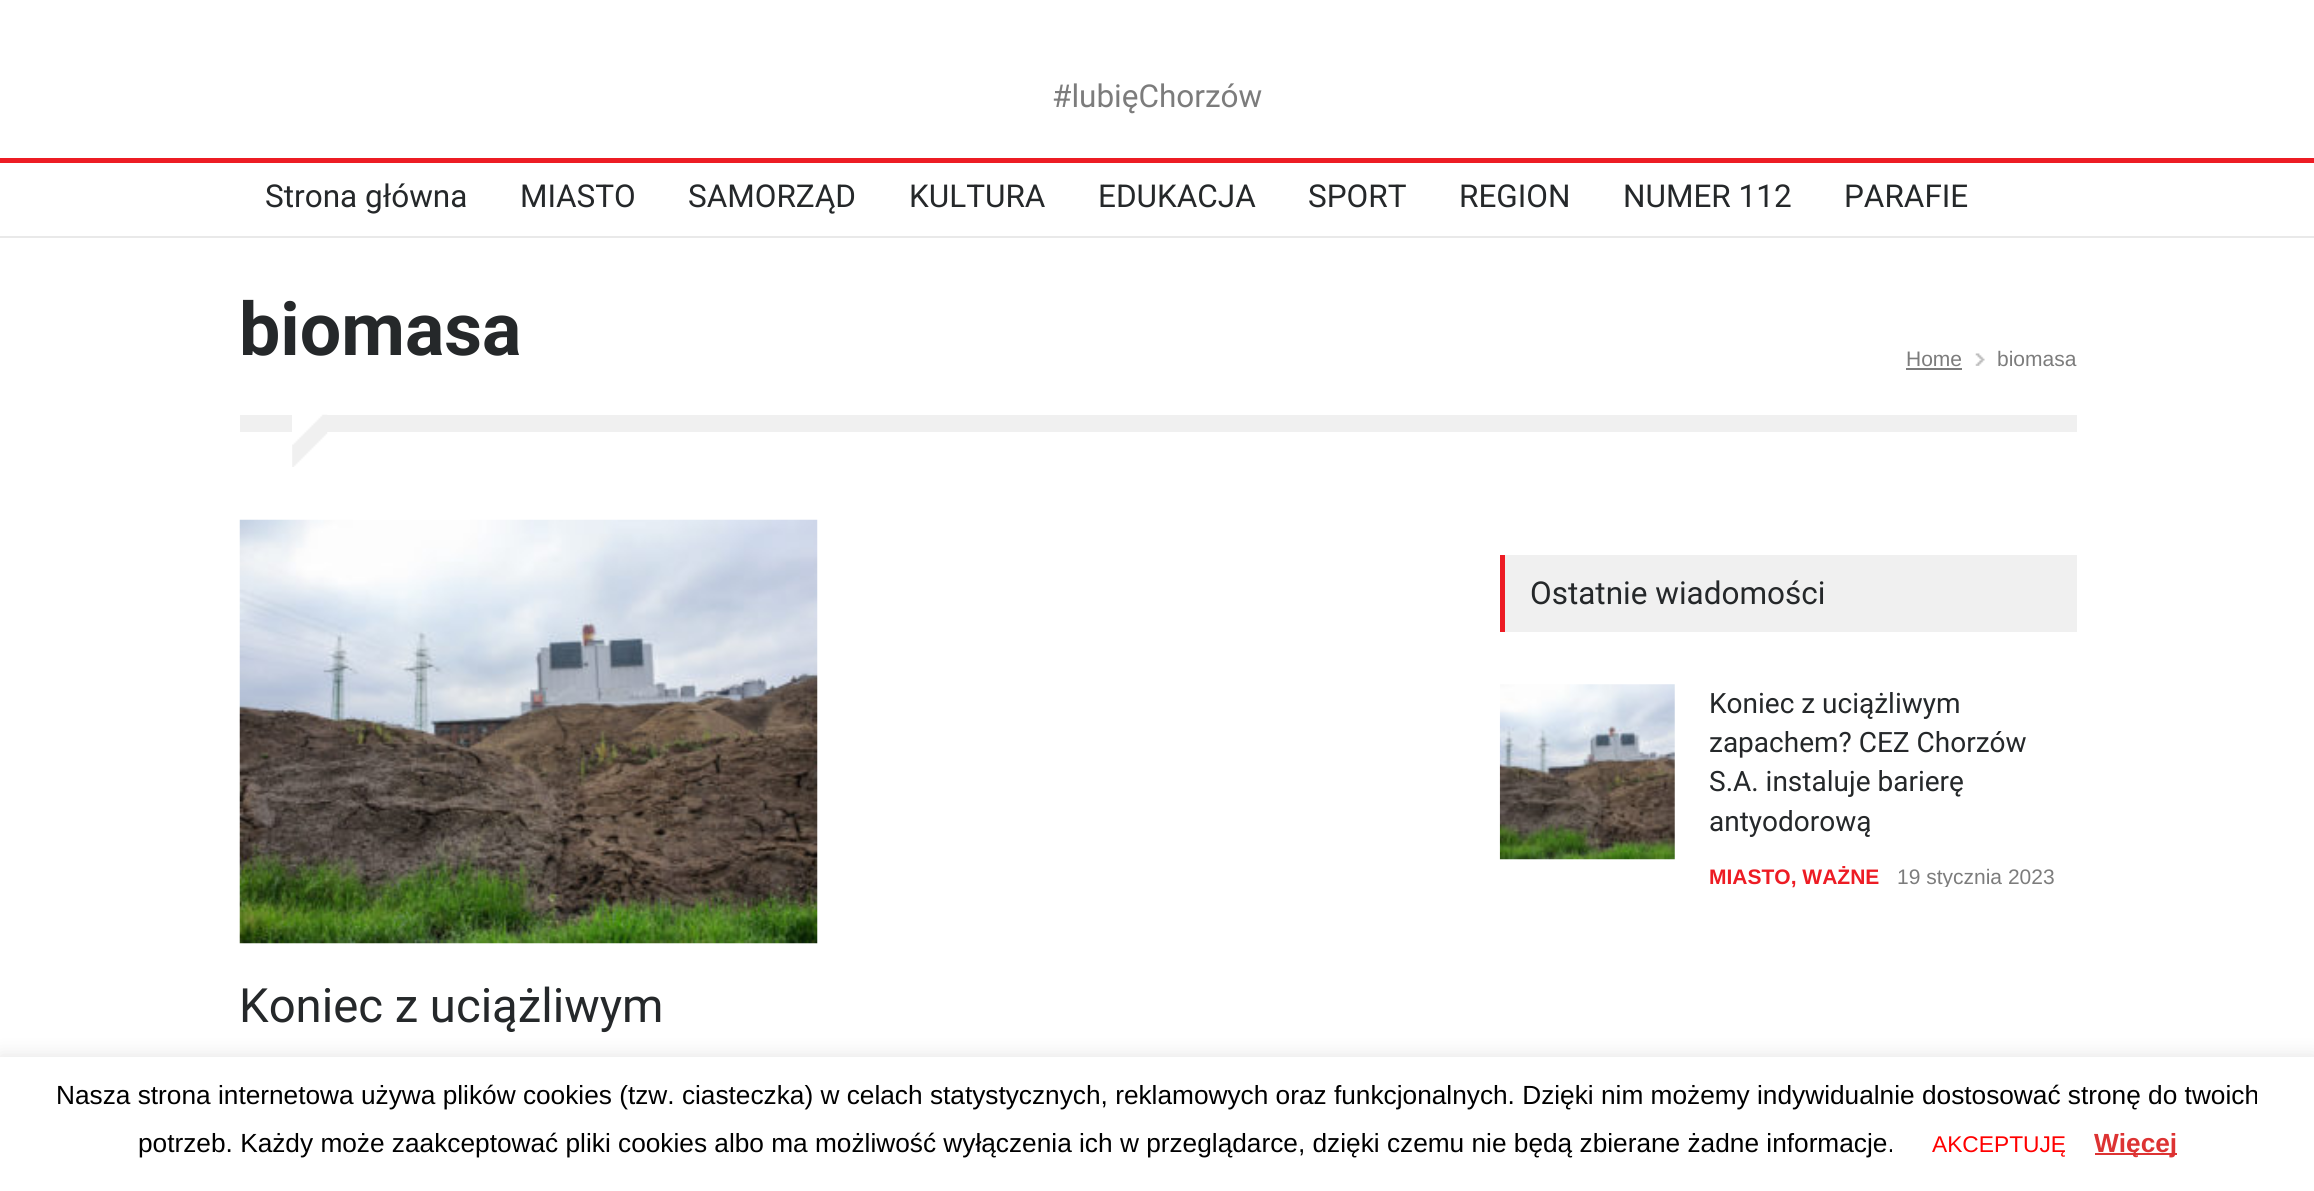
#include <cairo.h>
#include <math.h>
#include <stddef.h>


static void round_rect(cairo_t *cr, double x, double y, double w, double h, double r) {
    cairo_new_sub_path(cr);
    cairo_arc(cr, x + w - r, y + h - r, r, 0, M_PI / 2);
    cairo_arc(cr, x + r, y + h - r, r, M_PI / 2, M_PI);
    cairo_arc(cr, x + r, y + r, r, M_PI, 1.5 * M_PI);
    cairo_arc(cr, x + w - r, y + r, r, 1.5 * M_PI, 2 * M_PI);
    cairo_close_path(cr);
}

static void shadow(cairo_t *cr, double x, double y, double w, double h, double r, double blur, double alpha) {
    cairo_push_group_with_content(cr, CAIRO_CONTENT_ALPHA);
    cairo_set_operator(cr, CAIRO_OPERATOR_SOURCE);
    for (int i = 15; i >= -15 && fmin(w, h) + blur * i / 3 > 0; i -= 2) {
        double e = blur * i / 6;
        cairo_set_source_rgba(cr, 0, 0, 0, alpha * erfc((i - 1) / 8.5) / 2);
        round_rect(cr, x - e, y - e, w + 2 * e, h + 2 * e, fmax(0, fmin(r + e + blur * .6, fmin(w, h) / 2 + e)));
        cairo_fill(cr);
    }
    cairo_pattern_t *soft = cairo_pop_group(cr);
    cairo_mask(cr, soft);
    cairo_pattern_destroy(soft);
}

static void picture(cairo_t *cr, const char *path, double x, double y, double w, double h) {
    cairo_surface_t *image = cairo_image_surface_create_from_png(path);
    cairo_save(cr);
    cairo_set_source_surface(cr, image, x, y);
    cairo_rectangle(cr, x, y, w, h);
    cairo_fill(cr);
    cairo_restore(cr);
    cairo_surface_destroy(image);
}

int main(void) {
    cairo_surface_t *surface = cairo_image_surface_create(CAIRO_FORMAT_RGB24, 2314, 1191);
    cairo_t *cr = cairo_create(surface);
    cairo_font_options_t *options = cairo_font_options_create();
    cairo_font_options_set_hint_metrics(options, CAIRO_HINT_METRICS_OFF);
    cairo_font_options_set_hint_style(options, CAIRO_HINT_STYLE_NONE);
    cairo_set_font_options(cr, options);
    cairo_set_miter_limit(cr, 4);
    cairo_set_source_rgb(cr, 1, 1, 1);
    cairo_paint(cr);
    cairo_select_font_face(cr, "Roboto", CAIRO_FONT_SLANT_NORMAL, CAIRO_FONT_WEIGHT_NORMAL);
    cairo_set_font_size(cr, 31.5);
    cairo_set_source_rgb(cr, 0.486, 0.486, 0.486);
    cairo_move_to(cr, 1052, 107);
    cairo_show_text(cr, "#lubięChorzów");
    cairo_set_source_rgb(cr, 0.929, 0.11, 0.141);
    cairo_rectangle(cr, 0, 158, 2314, 5);
    cairo_fill(cr);
    cairo_set_source_rgb(cr, 0.914, 0.914, 0.914);
    cairo_rectangle(cr, 0, 236, 2314, 2);
    cairo_fill(cr);
    cairo_set_source_rgb(cr, 0.145, 0.157, 0.165);
    cairo_move_to(cr, 265, 207);
    cairo_show_text(cr, "Strona główna");
    cairo_move_to(cr, 520, 207);
    cairo_show_text(cr, "MIASTO");
    cairo_move_to(cr, 688, 207);
    cairo_show_text(cr, "SAMORZĄD");
    cairo_move_to(cr, 909, 207);
    cairo_show_text(cr, "KULTURA");
    cairo_move_to(cr, 1098, 207);
    cairo_show_text(cr, "EDUKACJA");
    cairo_move_to(cr, 1308, 207);
    cairo_show_text(cr, "SPORT");
    cairo_move_to(cr, 1459, 207);
    cairo_show_text(cr, "REGION");
    cairo_move_to(cr, 1623, 207);
    cairo_show_text(cr, "NUMER 112");
    cairo_move_to(cr, 1844, 207);
    cairo_show_text(cr, "PARAFIE");
    cairo_select_font_face(cr, "Roboto", CAIRO_FONT_SLANT_NORMAL, CAIRO_FONT_WEIGHT_BOLD);
    cairo_set_font_size(cr, 73.5);
    cairo_move_to(cr, 239, 355);
    cairo_show_text(cr, "biomasa");
    cairo_select_font_face(cr, "Liberation Sans", CAIRO_FONT_SLANT_NORMAL, CAIRO_FONT_WEIGHT_NORMAL);
    cairo_set_font_size(cr, 21);
    cairo_set_source_rgb(cr, 0.486, 0.486, 0.486);
    cairo_move_to(cr, 1906, 366);
    cairo_show_text(cr, "Home");
    cairo_rectangle(cr, 1906, 368, 56, 2);
    cairo_fill(cr);
    picture(cr, "img1.png", 1975, 353, 10, 13);
    cairo_move_to(cr, 1997, 366);
    cairo_show_text(cr, "biomasa");
    cairo_set_source_rgb(cr, 0.941, 0.941, 0.941);
    cairo_rectangle(cr, 240, 415, 52, 17);
    cairo_fill(cr);
    picture(cr, "img2.png", 292, 414, 36, 53);
    cairo_rectangle(cr, 327, 415, 1750, 17);
    cairo_fill(cr);
    cairo_rectangle(cr, 1505, 555, 572, 77);
    cairo_fill(cr);
    cairo_set_source_rgb(cr, 0.929, 0.11, 0.141);
    cairo_rectangle(cr, 1500, 555, 5, 77);
    cairo_fill(cr);
    cairo_select_font_face(cr, "Roboto", CAIRO_FONT_SLANT_NORMAL, CAIRO_FONT_WEIGHT_NORMAL);
    cairo_set_font_size(cr, 31.5);
    cairo_set_source_rgb(cr, 0.145, 0.157, 0.165);
    cairo_move_to(cr, 1530, 604);
    cairo_show_text(cr, "Ostatnie wiadomości");
    picture(cr, "img3.png", 1499, 684, 176, 176);
    cairo_set_font_size(cr, 28);
    cairo_move_to(cr, 1709, 713);
    cairo_show_text(cr, "Koniec z uciążliwym");
    cairo_move_to(cr, 1709, 752);
    cairo_show_text(cr, "zapachem? CEZ Chorzów");
    cairo_move_to(cr, 1709, 791);
    cairo_show_text(cr, "S.A. instaluje barierę");
    cairo_move_to(cr, 1709, 831);
    cairo_show_text(cr, "antyodorową");
    cairo_select_font_face(cr, "Liberation Sans", CAIRO_FONT_SLANT_NORMAL, CAIRO_FONT_WEIGHT_BOLD);
    cairo_set_font_size(cr, 21);
    cairo_set_source_rgb(cr, 0.929, 0.11, 0.141);
    cairo_move_to(cr, 1709, 884);
    cairo_show_text(cr, "MIASTO, WAŻNE");
    cairo_save(cr);
    cairo_rectangle(cr, 1500, 632, 577, 255);
    cairo_clip(cr);
    cairo_select_font_face(cr, "Liberation Sans", CAIRO_FONT_SLANT_NORMAL, CAIRO_FONT_WEIGHT_NORMAL);
    cairo_set_source_rgb(cr, 0.486, 0.486, 0.486);
    cairo_move_to(cr, 1897, 884);
    cairo_show_text(cr, "19 stycznia 2023");
    cairo_restore(cr);
    picture(cr, "img4.png", 239, 519, 579, 425);
    cairo_select_font_face(cr, "Roboto", CAIRO_FONT_SLANT_NORMAL, CAIRO_FONT_WEIGHT_NORMAL);
    cairo_set_font_size(cr, 47.25);
    cairo_set_source_rgb(cr, 0.145, 0.157, 0.165);
    cairo_move_to(cr, 239, 1022);
    cairo_show_text(cr, "Koniec z uciążliwym");
    cairo_set_source_rgb(cr, 0.675, 0.671, 0.671);
    shadow(cr, 0, 1055, 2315, 135, 0, 9, 0.3);
    cairo_set_source_rgb(cr, 1, 1, 1);
    cairo_rectangle(cr, 0, 1057, 2314, 134);
    cairo_fill(cr);
    cairo_select_font_face(cr, "Liberation Sans", CAIRO_FONT_SLANT_NORMAL, CAIRO_FONT_WEIGHT_NORMAL);
    cairo_set_font_size(cr, 26.25);
    cairo_set_source_rgb(cr, 0, 0, 0);
    cairo_move_to(cr, 56, 1104);
    cairo_show_text(cr, "Nasza strona internetowa używa plików cookies (tzw. ciasteczka) w celach statystycznych, reklamowych oraz funkcjonalnych. Dzięki nim możemy indywidualnie dostosować stronę do twoich");
    cairo_move_to(cr, 138, 1152);
    cairo_show_text(cr, "potrzeb. Każdy może zaakceptować pliki cookies albo ma możliwość wyłączenia ich w przeglądarce, dzięki czemu nie będą zbierane żadne informacje.");
    cairo_set_font_size(cr, 22.75);
    cairo_set_source_rgb(cr, 1, 0, 0);
    cairo_move_to(cr, 1932, 1152);
    cairo_show_text(cr, "AKCEPTUJĘ");
    cairo_set_source_rgb(cr, 0.867, 0.2, 0.2);
    cairo_rectangle(cr, 2095, 1153, 82, 2);
    cairo_fill(cr);
    cairo_select_font_face(cr, "Liberation Sans", CAIRO_FONT_SLANT_NORMAL, CAIRO_FONT_WEIGHT_BOLD);
    cairo_set_font_size(cr, 26.25);
    cairo_move_to(cr, 2094, 1152);
    cairo_show_text(cr, "Więcej");
    cairo_surface_write_to_png(surface, "page.png");
    cairo_font_options_destroy(options);
    cairo_destroy(cr);
    cairo_surface_destroy(surface);
    return 0;
}
